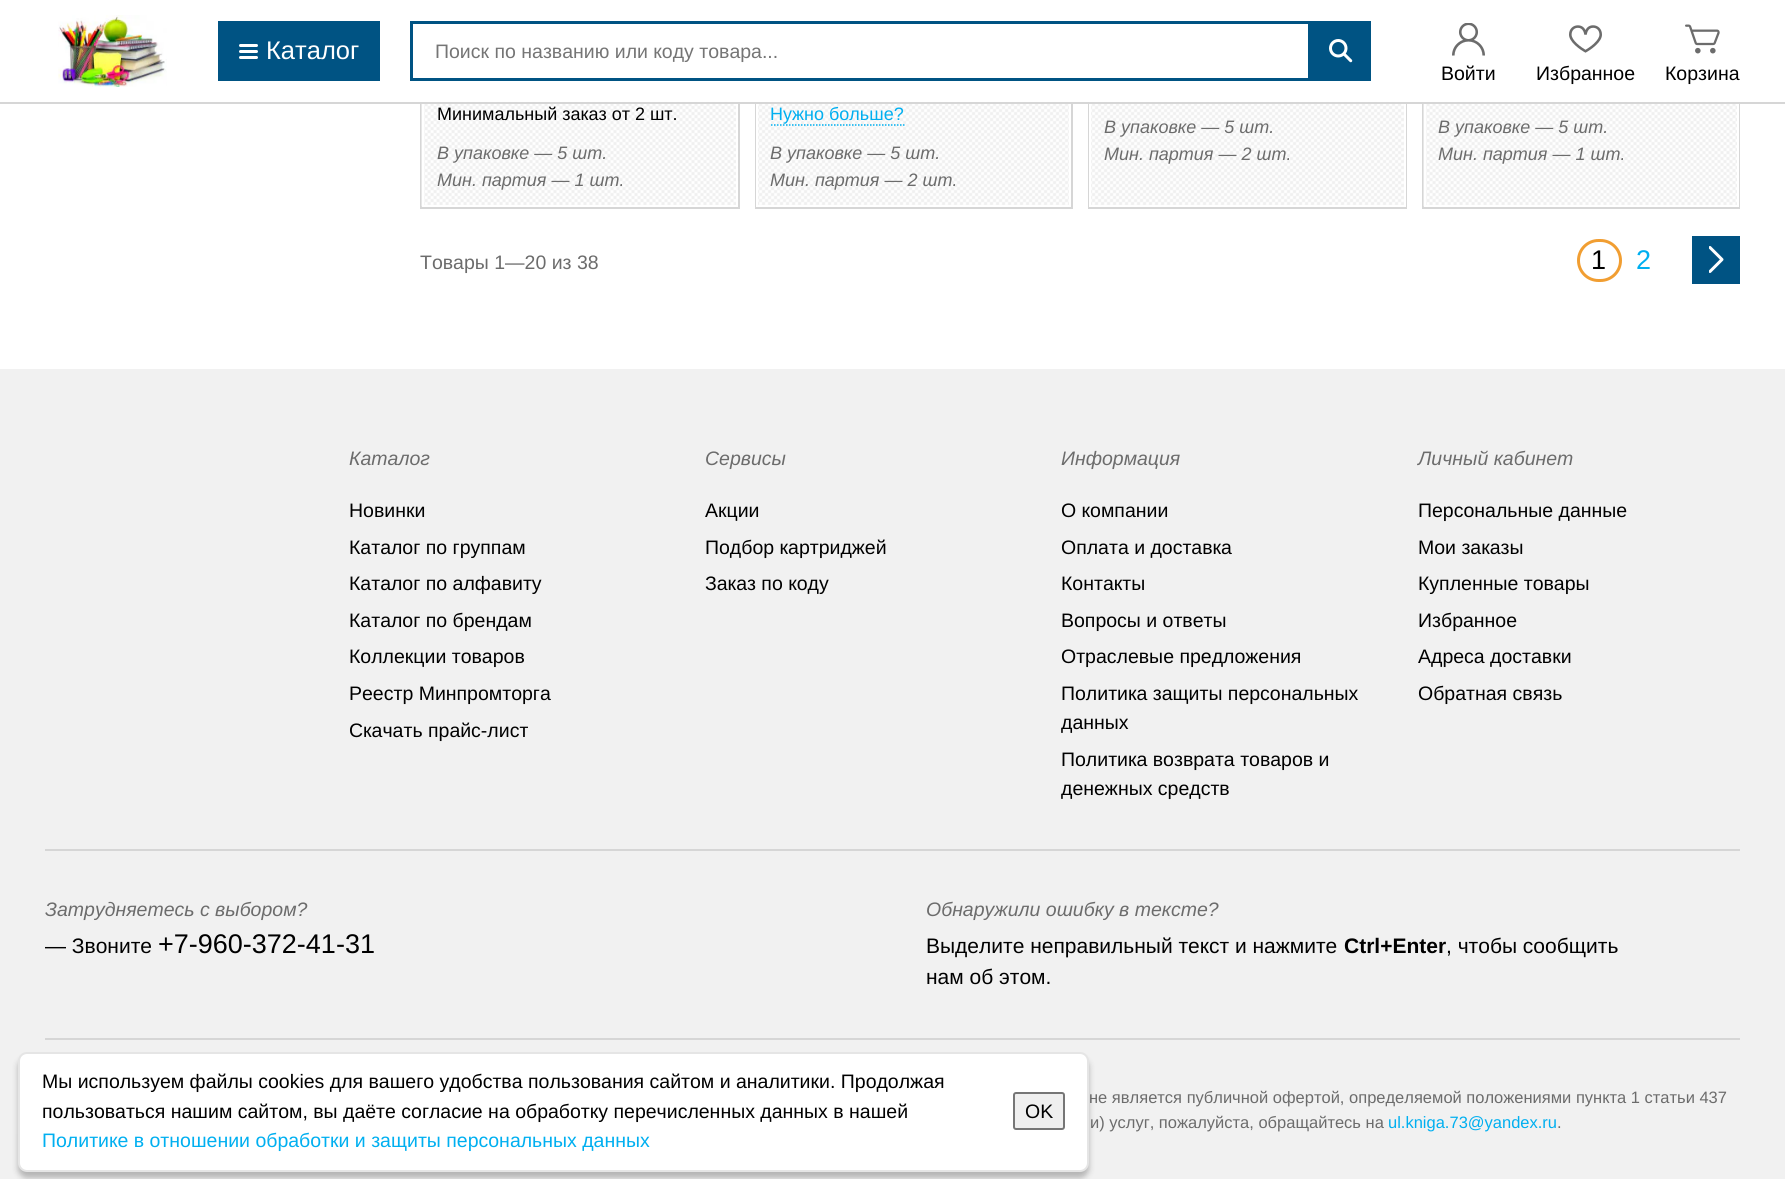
#include <cairo.h>
#include <math.h>
#include <stddef.h>


static void round_rect(cairo_t *cr, double x, double y, double w, double h, double r) {
    cairo_new_sub_path(cr);
    cairo_arc(cr, x + w - r, y + h - r, r, 0, M_PI / 2);
    cairo_arc(cr, x + r, y + h - r, r, M_PI / 2, M_PI);
    cairo_arc(cr, x + r, y + r, r, M_PI, 1.5 * M_PI);
    cairo_arc(cr, x + w - r, y + r, r, 1.5 * M_PI, 2 * M_PI);
    cairo_close_path(cr);
}

static void shadow(cairo_t *cr, double x, double y, double w, double h, double r, double blur, double alpha) {
    cairo_push_group_with_content(cr, CAIRO_CONTENT_ALPHA);
    cairo_set_operator(cr, CAIRO_OPERATOR_SOURCE);
    for (int i = 15; i >= -15 && fmin(w, h) + blur * i / 3 > 0; i -= 2) {
        double e = blur * i / 6;
        cairo_set_source_rgba(cr, 0, 0, 0, alpha * erfc((i - 1) / 8.5) / 2);
        round_rect(cr, x - e, y - e, w + 2 * e, h + 2 * e, fmax(0, fmin(r + e + blur * .6, fmin(w, h) / 2 + e)));
        cairo_fill(cr);
    }
    cairo_pattern_t *soft = cairo_pop_group(cr);
    cairo_mask(cr, soft);
    cairo_pattern_destroy(soft);
}

static void picture(cairo_t *cr, const char *path, double x, double y, double w, double h) {
    cairo_surface_t *image = cairo_image_surface_create_from_png(path);
    cairo_save(cr);
    cairo_set_source_surface(cr, image, x, y);
    cairo_rectangle(cr, x, y, w, h);
    cairo_fill(cr);
    cairo_restore(cr);
    cairo_surface_destroy(image);
}

int main(void) {
    cairo_surface_t *surface = cairo_image_surface_create(CAIRO_FORMAT_RGB24, 1785, 1179);
    cairo_t *cr = cairo_create(surface);
    cairo_font_options_t *options = cairo_font_options_create();
    cairo_font_options_set_hint_metrics(options, CAIRO_HINT_METRICS_OFF);
    cairo_font_options_set_hint_style(options, CAIRO_HINT_STYLE_NONE);
    cairo_set_font_options(cr, options);
    cairo_set_miter_limit(cr, 4);
    cairo_set_source_rgb(cr, 1, 1, 1);
    cairo_paint(cr);
    cairo_rectangle(cr, 421, -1, 318, 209);
    cairo_set_source_rgb(cr, 0.839, 0.839, 0.839);
    cairo_stroke(cr);
    picture(cr, "img6.png", 421, 104, 315, 103);
    cairo_rectangle(cr, 423, -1, 314, 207);
    cairo_set_source_rgb(cr, 1, 1, 1);
    cairo_stroke(cr);
    cairo_rectangle(cr, 756, -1, 316, 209);
    cairo_set_source_rgb(cr, 0.839, 0.839, 0.839);
    cairo_stroke(cr);
    picture(cr, "img7.png", 758, 104, 311, 101);
    cairo_rectangle(cr, 757, -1, 313, 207);
    cairo_set_source_rgb(cr, 1, 1, 1);
    cairo_stroke(cr);
    cairo_rectangle(cr, 1089, -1, 317, 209);
    cairo_set_source_rgb(cr, 0.839, 0.839, 0.839);
    cairo_stroke(cr);
    picture(cr, "img8.png", 1091, 104, 313, 101);
    cairo_rectangle(cr, 1090, -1, 315, 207);
    cairo_set_source_rgb(cr, 1, 1, 1);
    cairo_stroke(cr);
    cairo_rectangle(cr, 1423, -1, 316, 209);
    cairo_set_source_rgb(cr, 0.839, 0.839, 0.839);
    cairo_stroke(cr);
    picture(cr, "img9.png", 1423, 104, 314, 103);
    cairo_rectangle(cr, 1425, -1, 313, 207);
    cairo_set_source_rgb(cr, 1, 1, 1);
    cairo_stroke(cr);
    cairo_rectangle(cr, 420, 0, 1320, 102);
    cairo_fill(cr);
    cairo_set_source_rgb(cr, 0.839, 0.839, 0.839);
    cairo_rectangle(cr, 0, 102, 1785, 2);
    cairo_fill(cr);
    picture(cr, "img1.png", 58, 15, 109, 72);
    cairo_set_source_rgb(cr, 0, 0.325, 0.514);
    cairo_rectangle(cr, 218, 21, 162, 60);
    cairo_fill(cr);
    cairo_set_source_rgb(cr, 1, 1, 1);
    round_rect(cr, 239, 50, 19, 3, 1.5);
    cairo_fill(cr);
    round_rect(cr, 239, 44, 19, 3, 1.5);
    cairo_fill(cr);
    round_rect(cr, 239, 56, 19, 3, 1.5);
    cairo_fill(cr);
    cairo_select_font_face(cr, "Liberation Sans", CAIRO_FONT_SLANT_NORMAL, CAIRO_FONT_WEIGHT_NORMAL);
    cairo_set_font_size(cr, 25.5);
    cairo_move_to(cr, 266, 59);
    cairo_show_text(cr, "Каталог");
    cairo_rectangle(cr, 411.5, 22.5, 958, 57);
    cairo_set_source_rgb(cr, 0, 0.325, 0.514);
    cairo_set_line_width(cr, 3);
    cairo_stroke(cr);
    cairo_set_font_size(cr, 19.5);
    cairo_set_source_rgb(cr, 0.459, 0.459, 0.459);
    cairo_move_to(cr, 435, 58);
    cairo_show_text(cr, "Поиск по названию или коду товара...");
    cairo_set_source_rgb(cr, 0, 0.325, 0.514);
    cairo_rectangle(cr, 1308, 24, 60, 54);
    cairo_fill(cr);
    picture(cr, "img2.png", 1329, 39, 24, 24);
    picture(cr, "img3.png", 1452, 23, 33, 33);
    cairo_set_source_rgb(cr, 0, 0, 0);
    cairo_move_to(cr, 1441, 80);
    cairo_show_text(cr, "Войти");
    picture(cr, "img4.png", 1569, 25, 33, 28);
    cairo_move_to(cr, 1536, 80);
    cairo_show_text(cr, "Избранное");
    picture(cr, "img5.png", 1685, 24, 35, 30);
    cairo_move_to(cr, 1665, 80);
    cairo_show_text(cr, "Корзина");
    cairo_set_font_size(cr, 18);
    cairo_move_to(cr, 437, 120);
    cairo_show_text(cr, "Минимальный заказ от 2 шт.");
    cairo_select_font_face(cr, "Liberation Sans", CAIRO_FONT_SLANT_ITALIC, CAIRO_FONT_WEIGHT_NORMAL);
    cairo_set_source_rgb(cr, 0.424, 0.424, 0.424);
    cairo_move_to(cr, 437, 159);
    cairo_show_text(cr, "В упаковке — 5 шт.");
    cairo_move_to(cr, 437, 186);
    cairo_show_text(cr, "Мин. партия — 1 шт.");
    cairo_select_font_face(cr, "Liberation Sans", CAIRO_FONT_SLANT_NORMAL, CAIRO_FONT_WEIGHT_NORMAL);
    cairo_set_source_rgb(cr, 0, 0.686, 0.941);
    cairo_move_to(cr, 770, 120);
    cairo_show_text(cr, "Нужно больше?");
    cairo_new_path(cr);
    cairo_move_to(cr, 771, 125);
    cairo_line_to(cr, 904.5, 125);
    cairo_set_line_width(cr, 1.5);
    cairo_set_dash(cr, (double[]){1.5, 1.5}, 2, 0);
    cairo_stroke(cr);
    cairo_select_font_face(cr, "Liberation Sans", CAIRO_FONT_SLANT_ITALIC, CAIRO_FONT_WEIGHT_NORMAL);
    cairo_set_source_rgb(cr, 0.424, 0.424, 0.424);
    cairo_move_to(cr, 770, 159);
    cairo_show_text(cr, "В упаковке — 5 шт.");
    cairo_move_to(cr, 770, 186);
    cairo_show_text(cr, "Мин. партия — 2 шт.");
    cairo_move_to(cr, 1104, 133);
    cairo_show_text(cr, "В упаковке — 5 шт.");
    cairo_move_to(cr, 1104, 160);
    cairo_show_text(cr, "Мин. партия — 2 шт.");
    cairo_move_to(cr, 1438, 133);
    cairo_show_text(cr, "В упаковке — 5 шт.");
    cairo_move_to(cr, 1438, 160);
    cairo_show_text(cr, "Мин. партия — 1 шт.");
    cairo_select_font_face(cr, "Liberation Sans", CAIRO_FONT_SLANT_NORMAL, CAIRO_FONT_WEIGHT_NORMAL);
    cairo_set_font_size(cr, 19.5);
    cairo_move_to(cr, 420, 269);
    cairo_show_text(cr, "Товары 1—20 из 38");
    round_rect(cr, 1578.5, 240.5, 42, 40, 20);
    cairo_set_source_rgb(cr, 0.945, 0.62, 0.196);
    cairo_set_line_width(cr, 3);
    cairo_set_dash(cr, NULL, 0, 0);
    cairo_stroke(cr);
    cairo_set_font_size(cr, 27);
    cairo_set_source_rgb(cr, 0, 0, 0);
    cairo_move_to(cr, 1591, 269);
    cairo_show_text(cr, "1");
    cairo_set_source_rgb(cr, 0, 0.686, 0.941);
    cairo_move_to(cr, 1636, 269);
    cairo_show_text(cr, "2");
    cairo_set_source_rgb(cr, 0, 0.325, 0.514);
    cairo_rectangle(cr, 1692, 236, 48, 48);
    cairo_fill(cr);
    picture(cr, "img10.png", 1709, 246, 15, 27);
    cairo_set_source_rgb(cr, 0.945, 0.945, 0.945);
    cairo_rectangle(cr, 0, 369, 1785, 810);
    cairo_fill(cr);
    cairo_select_font_face(cr, "Liberation Sans", CAIRO_FONT_SLANT_ITALIC, CAIRO_FONT_WEIGHT_NORMAL);
    cairo_set_font_size(cr, 19.5);
    cairo_set_source_rgb(cr, 0.424, 0.424, 0.424);
    cairo_move_to(cr, 349, 465);
    cairo_show_text(cr, "Каталог");
    cairo_select_font_face(cr, "Liberation Sans", CAIRO_FONT_SLANT_NORMAL, CAIRO_FONT_WEIGHT_NORMAL);
    cairo_set_source_rgb(cr, 0, 0, 0);
    cairo_move_to(cr, 349, 517);
    cairo_show_text(cr, "Новинки");
    cairo_move_to(cr, 349, 554);
    cairo_show_text(cr, "Каталог по группам");
    cairo_move_to(cr, 349, 590);
    cairo_show_text(cr, "Каталог по алфавиту");
    cairo_move_to(cr, 349, 627);
    cairo_show_text(cr, "Каталог по брендам");
    cairo_move_to(cr, 349, 663);
    cairo_show_text(cr, "Коллекции товаров");
    cairo_move_to(cr, 349, 700);
    cairo_show_text(cr, "Реестр Минпромторга");
    cairo_move_to(cr, 349, 737);
    cairo_show_text(cr, "Скачать прайс-лист");
    cairo_select_font_face(cr, "Liberation Sans", CAIRO_FONT_SLANT_ITALIC, CAIRO_FONT_WEIGHT_NORMAL);
    cairo_set_source_rgb(cr, 0.424, 0.424, 0.424);
    cairo_move_to(cr, 705, 465);
    cairo_show_text(cr, "Сервисы");
    cairo_select_font_face(cr, "Liberation Sans", CAIRO_FONT_SLANT_NORMAL, CAIRO_FONT_WEIGHT_NORMAL);
    cairo_set_source_rgb(cr, 0, 0, 0);
    cairo_move_to(cr, 705, 517);
    cairo_show_text(cr, "Акции");
    cairo_move_to(cr, 705, 554);
    cairo_show_text(cr, "Подбор картриджей");
    cairo_move_to(cr, 705, 590);
    cairo_show_text(cr, "Заказ по коду");
    cairo_select_font_face(cr, "Liberation Sans", CAIRO_FONT_SLANT_ITALIC, CAIRO_FONT_WEIGHT_NORMAL);
    cairo_set_source_rgb(cr, 0.424, 0.424, 0.424);
    cairo_move_to(cr, 1061, 465);
    cairo_show_text(cr, "Информация");
    cairo_select_font_face(cr, "Liberation Sans", CAIRO_FONT_SLANT_NORMAL, CAIRO_FONT_WEIGHT_NORMAL);
    cairo_set_source_rgb(cr, 0, 0, 0);
    cairo_move_to(cr, 1061, 517);
    cairo_show_text(cr, "О компании");
    cairo_move_to(cr, 1061, 554);
    cairo_show_text(cr, "Оплата и доставка");
    cairo_move_to(cr, 1061, 590);
    cairo_show_text(cr, "Контакты");
    cairo_move_to(cr, 1061, 627);
    cairo_show_text(cr, "Вопросы и ответы");
    cairo_move_to(cr, 1061, 663);
    cairo_show_text(cr, "Отраслевые предложения");
    cairo_move_to(cr, 1061, 700);
    cairo_show_text(cr, "Политика защиты персональных");
    cairo_move_to(cr, 1061, 729);
    cairo_show_text(cr, "данных");
    cairo_move_to(cr, 1061, 766);
    cairo_show_text(cr, "Политика возврата товаров и");
    cairo_move_to(cr, 1061, 795);
    cairo_show_text(cr, "денежных средств");
    cairo_select_font_face(cr, "Liberation Sans", CAIRO_FONT_SLANT_ITALIC, CAIRO_FONT_WEIGHT_NORMAL);
    cairo_set_source_rgb(cr, 0.424, 0.424, 0.424);
    cairo_move_to(cr, 1418, 465);
    cairo_show_text(cr, "Личный кабинет");
    cairo_select_font_face(cr, "Liberation Sans", CAIRO_FONT_SLANT_NORMAL, CAIRO_FONT_WEIGHT_NORMAL);
    cairo_set_source_rgb(cr, 0, 0, 0);
    cairo_move_to(cr, 1418, 517);
    cairo_show_text(cr, "Персональные данные");
    cairo_move_to(cr, 1418, 554);
    cairo_show_text(cr, "Мои заказы");
    cairo_move_to(cr, 1418, 590);
    cairo_show_text(cr, "Купленные товары");
    cairo_move_to(cr, 1418, 627);
    cairo_show_text(cr, "Избранное");
    cairo_move_to(cr, 1418, 663);
    cairo_show_text(cr, "Адреса доставки");
    cairo_move_to(cr, 1418, 700);
    cairo_show_text(cr, "Обратная связь");
    cairo_set_source_rgb(cr, 0.839, 0.839, 0.839);
    cairo_rectangle(cr, 45, 849, 1695, 2);
    cairo_fill(cr);
    cairo_select_font_face(cr, "Liberation Sans", CAIRO_FONT_SLANT_ITALIC, CAIRO_FONT_WEIGHT_NORMAL);
    cairo_set_source_rgb(cr, 0.424, 0.424, 0.424);
    cairo_move_to(cr, 45, 916);
    cairo_show_text(cr, "Затрудняетесь с выбором?");
    cairo_select_font_face(cr, "Liberation Sans", CAIRO_FONT_SLANT_NORMAL, CAIRO_FONT_WEIGHT_NORMAL);
    cairo_set_font_size(cr, 21);
    cairo_set_source_rgb(cr, 0, 0, 0);
    cairo_move_to(cr, 45, 953);
    cairo_show_text(cr, "— Звоните");
    cairo_set_font_size(cr, 27);
    cairo_move_to(cr, 158, 953);
    cairo_show_text(cr, "+7-960-372-41-31");
    cairo_select_font_face(cr, "Liberation Sans", CAIRO_FONT_SLANT_ITALIC, CAIRO_FONT_WEIGHT_NORMAL);
    cairo_set_font_size(cr, 19.5);
    cairo_set_source_rgb(cr, 0.424, 0.424, 0.424);
    cairo_move_to(cr, 926, 916);
    cairo_show_text(cr, "Обнаружили ошибку в тексте?");
    cairo_select_font_face(cr, "Liberation Sans", CAIRO_FONT_SLANT_NORMAL, CAIRO_FONT_WEIGHT_NORMAL);
    cairo_set_font_size(cr, 21);
    cairo_set_source_rgb(cr, 0, 0, 0);
    cairo_move_to(cr, 926, 953);
    cairo_show_text(cr, "Выделите неправильный текст и нажмите");
    cairo_select_font_face(cr, "Liberation Sans", CAIRO_FONT_SLANT_NORMAL, CAIRO_FONT_WEIGHT_BOLD);
    cairo_move_to(cr, 1344, 953);
    cairo_show_text(cr, "Ctrl+Enter");
    cairo_select_font_face(cr, "Liberation Sans", CAIRO_FONT_SLANT_NORMAL, CAIRO_FONT_WEIGHT_NORMAL);
    cairo_move_to(cr, 1446, 953);
    cairo_show_text(cr, ", чтобы сообщить");
    cairo_move_to(cr, 926, 984);
    cairo_show_text(cr, "нам об этом.");
    cairo_set_source_rgb(cr, 0.839, 0.839, 0.839);
    cairo_rectangle(cr, 45, 1038, 1695, 2);
    cairo_fill(cr);
    cairo_set_font_size(cr, 16.5);
    cairo_set_source_rgb(cr, 0.424, 0.424, 0.424);
    cairo_move_to(cr, 1089, 1103);
    cairo_show_text(cr, "не является публичной офертой, определяемой положениями пункта 1 статьи 437");
    cairo_move_to(cr, 1090, 1128);
    cairo_show_text(cr, "и) услуг, пожалуйста, обращайтесь на");
    cairo_set_source_rgb(cr, 0, 0.686, 0.941);
    cairo_move_to(cr, 1388, 1128);
    cairo_show_text(cr, "ul.kniga.73@yandex.ru");
    cairo_set_source_rgb(cr, 0.424, 0.424, 0.424);
    cairo_move_to(cr, 1557, 1128);
    cairo_show_text(cr, ".");
    cairo_set_source_rgba(cr, 1, 1, 1, 0.9);
    cairo_rectangle(cr, 15, 1080, 3, 54);
    cairo_fill(cr);
    cairo_rectangle(cr, 19, 1084, 142, 46);
    cairo_set_source_rgba(cr, 0.945, 0.945, 0.945, 0.9);
    cairo_set_line_width(cr, 8);
    cairo_stroke(cr);
    cairo_set_source_rgb(cr, 0, 0, 0);
    shadow(cr, 18, 1058, 1071, 120, 9, 3, 0.25);
    cairo_set_source_rgb(cr, 1, 1, 1);
    round_rect(cr, 19, 1053, 1069, 118, 8);
    cairo_fill_preserve(cr);
    cairo_set_source_rgb(cr, 0.898, 0.898, 0.898);
    cairo_set_line_width(cr, 2);
    cairo_stroke(cr);
    cairo_set_font_size(cr, 19.5);
    cairo_set_source_rgb(cr, 0, 0, 0);
    cairo_move_to(cr, 42, 1088);
    cairo_show_text(cr, "Мы используем файлы cookies для вашего удобства пользования сайтом и аналитики. Продолжая");
    cairo_move_to(cr, 42, 1118);
    cairo_show_text(cr, "пользоваться нашим сайтом, вы даёте согласие на обработку перечисленных данных в нашей");
    cairo_set_source_rgb(cr, 0, 0.686, 0.941);
    cairo_move_to(cr, 42, 1147);
    cairo_show_text(cr, "Политике в отношении обработки и защиты персональных данных");
    cairo_set_source_rgb(cr, 0.937, 0.937, 0.937);
    round_rect(cr, 1014, 1093, 50, 36, 2);
    cairo_fill_preserve(cr);
    cairo_set_source_rgb(cr, 0.463, 0.463, 0.463);
    cairo_stroke(cr);
    cairo_set_source_rgb(cr, 0, 0, 0);
    cairo_move_to(cr, 1025, 1118);
    cairo_show_text(cr, "OK");
    cairo_surface_write_to_png(surface, "page.png");
    cairo_font_options_destroy(options);
    cairo_destroy(cr);
    cairo_surface_destroy(surface);
    return 0;
}
